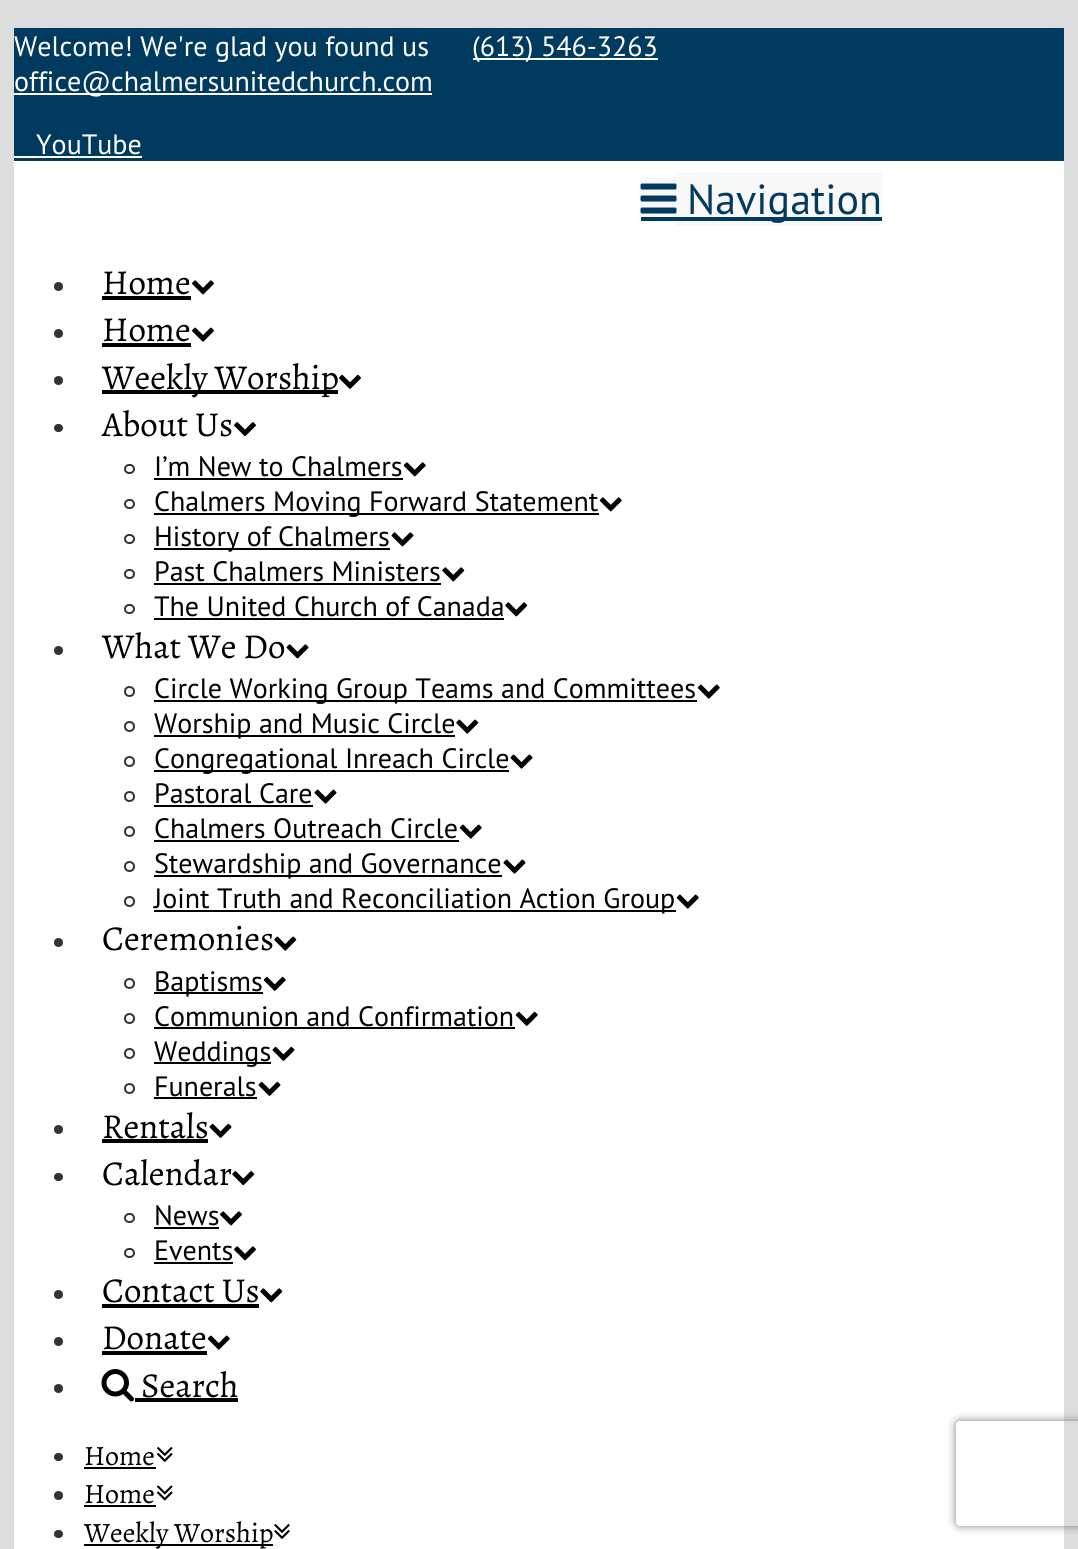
#include <cairo.h>
#include <math.h>
#include <stddef.h>


static void round_rect(cairo_t *cr, double x, double y, double w, double h, double r) {
    cairo_new_sub_path(cr);
    cairo_arc(cr, x + w - r, y + h - r, r, 0, M_PI / 2);
    cairo_arc(cr, x + r, y + h - r, r, M_PI / 2, M_PI);
    cairo_arc(cr, x + r, y + r, r, M_PI, 1.5 * M_PI);
    cairo_arc(cr, x + w - r, y + r, r, 1.5 * M_PI, 2 * M_PI);
    cairo_close_path(cr);
}

static void shadow(cairo_t *cr, double x, double y, double w, double h, double r, double blur, double alpha) {
    cairo_push_group_with_content(cr, CAIRO_CONTENT_ALPHA);
    cairo_set_operator(cr, CAIRO_OPERATOR_SOURCE);
    for (int i = 15; i >= -15 && fmin(w, h) + blur * i / 3 > 0; i -= 2) {
        double e = blur * i / 6;
        cairo_set_source_rgba(cr, 0, 0, 0, alpha * erfc((i - 1) / 8.5) / 2);
        round_rect(cr, x - e, y - e, w + 2 * e, h + 2 * e, fmax(0, fmin(r + e + blur * .6, fmin(w, h) / 2 + e)));
        cairo_fill(cr);
    }
    cairo_pattern_t *soft = cairo_pop_group(cr);
    cairo_mask(cr, soft);
    cairo_pattern_destroy(soft);
}

static void picture(cairo_t *cr, const char *path, double x, double y, double w, double h) {
    cairo_surface_t *image = cairo_image_surface_create_from_png(path);
    cairo_save(cr);
    cairo_set_source_surface(cr, image, x, y);
    cairo_rectangle(cr, x, y, w, h);
    cairo_fill(cr);
    cairo_restore(cr);
    cairo_surface_destroy(image);
}

int main(void) {
    cairo_surface_t *surface = cairo_image_surface_create(CAIRO_FORMAT_RGB24, 1078, 1549);
    cairo_t *cr = cairo_create(surface);
    cairo_font_options_t *options = cairo_font_options_create();
    cairo_font_options_set_hint_metrics(options, CAIRO_HINT_METRICS_OFF);
    cairo_font_options_set_hint_style(options, CAIRO_HINT_STYLE_NONE);
    cairo_set_font_options(cr, options);
    cairo_set_miter_limit(cr, 4);
    cairo_set_source_rgb(cr, 0.867, 0.867, 0.867);
    cairo_paint(cr);
    cairo_set_source_rgb(cr, 0, 0.227, 0.373);
    cairo_rectangle(cr, 14, 28, 1050, 133);
    cairo_fill(cr);
    cairo_select_font_face(cr, "PT Sans", CAIRO_FONT_SLANT_NORMAL, CAIRO_FONT_WEIGHT_NORMAL);
    cairo_set_font_size(cr, 28);
    cairo_set_source_rgb(cr, 1, 1, 1);
    cairo_move_to(cr, 14, 56);
    cairo_show_text(cr, "Welcome! We're glad you found us");
    cairo_rectangle(cr, 473, 58, 185, 2);
    cairo_fill(cr);
    cairo_move_to(cr, 472, 56);
    cairo_show_text(cr, "(613) 546-3263");
    cairo_rectangle(cr, 14, 93, 418, 2);
    cairo_fill(cr);
    cairo_move_to(cr, 14, 91);
    cairo_show_text(cr, "office@chalmersunitedchurch.com");
    cairo_move_to(cr, 36, 154);
    cairo_show_text(cr, "YouTube");
    cairo_rectangle(cr, 14, 156, 128, 2);
    cairo_fill(cr);
    cairo_rectangle(cr, 14, 161, 1050, 1388);
    cairo_fill(cr);
    cairo_set_source_rgb(cr, 0.969, 0.969, 0.969);
    cairo_rectangle(cr, 641, 177, 35, 40);
    cairo_fill(cr);
    cairo_rectangle(cr, 676, 172, 206, 54);
    cairo_fill(cr);
    cairo_set_source_rgb(cr, 0, 0.227, 0.373);
    cairo_rectangle(cr, 641, 217, 241, 4);
    cairo_fill(cr);
    picture(cr, "img1.png", 640, 183, 37, 31);
    cairo_set_font_size(cr, 42);
    cairo_move_to(cr, 687, 214);
    cairo_show_text(cr, "Navigation");
    cairo_set_source_rgb(cr, 0.2, 0.2, 0.2);
    cairo_new_path(cr);
    cairo_arc(cr, 58.5, 286.5, 4.5, 0, 2 * M_PI);
    cairo_fill(cr);
    cairo_select_font_face(cr, "Alegreya", CAIRO_FONT_SLANT_NORMAL, CAIRO_FONT_WEIGHT_NORMAL);
    cairo_set_font_size(cr, 35);
    cairo_set_source_rgb(cr, 0, 0, 0);
    cairo_move_to(cr, 102, 294);
    cairo_show_text(cr, "Home");
    cairo_rectangle(cr, 102, 296, 89, 4);
    cairo_fill(cr);
    picture(cr, "img2.png", 192, 280, 22, 15);
    cairo_set_source_rgb(cr, 0.2, 0.2, 0.2);
    cairo_arc(cr, 58.5, 333.5, 4.5, 0, 2 * M_PI);
    cairo_fill(cr);
    cairo_set_source_rgb(cr, 0, 0, 0);
    cairo_move_to(cr, 102, 341);
    cairo_show_text(cr, "Home");
    cairo_rectangle(cr, 102, 343, 89, 4);
    cairo_fill(cr);
    picture(cr, "img3.png", 192, 327, 22, 15);
    cairo_set_source_rgb(cr, 0.2, 0.2, 0.2);
    cairo_arc(cr, 58.5, 380.5, 4.5, 0, 2 * M_PI);
    cairo_fill(cr);
    cairo_set_source_rgb(cr, 0, 0, 0);
    cairo_rectangle(cr, 102, 390, 236, 4);
    cairo_fill(cr);
    cairo_move_to(cr, 102, 389);
    cairo_show_text(cr, "Weekly Worship");
    picture(cr, "img4.png", 339, 374, 22, 15);
    cairo_set_source_rgb(cr, 0.2, 0.2, 0.2);
    round_rect(cr, 54, 424, 9, 8, 4);
    cairo_fill(cr);
    cairo_set_source_rgb(cr, 0, 0, 0);
    cairo_move_to(cr, 102, 436);
    cairo_show_text(cr, "About Us");
    picture(cr, "img5.png", 234, 422, 22, 15);
    round_rect(cr, 125, 465, 9, 8, 4);
    cairo_set_source_rgb(cr, 0.2, 0.2, 0.2);
    cairo_stroke(cr);
    cairo_select_font_face(cr, "PT Sans", CAIRO_FONT_SLANT_NORMAL, CAIRO_FONT_WEIGHT_NORMAL);
    cairo_set_font_size(cr, 28);
    cairo_set_source_rgb(cr, 0, 0, 0);
    cairo_move_to(cr, 154, 476);
    cairo_show_text(cr, "I’m New to Chalmers");
    cairo_rectangle(cr, 154, 478, 249, 2);
    cairo_fill(cr);
    picture(cr, "img6.png", 403, 462, 23, 15);
    round_rect(cr, 125, 500, 9, 8, 4);
    cairo_set_source_rgb(cr, 0.2, 0.2, 0.2);
    cairo_stroke(cr);
    cairo_set_source_rgb(cr, 0, 0, 0);
    cairo_rectangle(cr, 154, 513, 445, 2);
    cairo_fill(cr);
    cairo_move_to(cr, 154, 511);
    cairo_show_text(cr, "Chalmers Moving Forward Statement");
    picture(cr, "img6.png", 599, 497, 23, 15);
    round_rect(cr, 125, 535, 9, 8, 4);
    cairo_set_source_rgb(cr, 0.2, 0.2, 0.2);
    cairo_stroke(cr);
    cairo_set_source_rgb(cr, 0, 0, 0);
    cairo_rectangle(cr, 154, 548, 236, 2);
    cairo_fill(cr);
    cairo_move_to(cr, 154, 546);
    cairo_show_text(cr, "History of Chalmers");
    picture(cr, "img7.png", 391, 532, 23, 15);
    round_rect(cr, 125, 570, 9, 8, 4);
    cairo_set_source_rgb(cr, 0.2, 0.2, 0.2);
    cairo_stroke(cr);
    cairo_set_source_rgb(cr, 0, 0, 0);
    cairo_move_to(cr, 154, 581);
    cairo_show_text(cr, "Past Chalmers Ministers");
    cairo_rectangle(cr, 154, 583, 287, 2);
    cairo_fill(cr);
    picture(cr, "img8.png", 442, 567, 23, 15);
    round_rect(cr, 125, 605, 9, 8, 4);
    cairo_set_source_rgb(cr, 0.2, 0.2, 0.2);
    cairo_stroke(cr);
    cairo_set_source_rgb(cr, 0, 0, 0);
    cairo_move_to(cr, 154, 616);
    cairo_show_text(cr, "The United Church of Canada");
    cairo_rectangle(cr, 154, 618, 350, 2);
    cairo_fill(cr);
    picture(cr, "img8.png", 505, 602, 23, 15);
    cairo_set_source_rgb(cr, 0.2, 0.2, 0.2);
    cairo_arc(cr, 58.5, 650.5, 4.5, 0, 2 * M_PI);
    cairo_fill(cr);
    cairo_select_font_face(cr, "Alegreya", CAIRO_FONT_SLANT_NORMAL, CAIRO_FONT_WEIGHT_NORMAL);
    cairo_set_font_size(cr, 35);
    cairo_set_source_rgb(cr, 0, 0, 0);
    cairo_move_to(cr, 102, 658);
    cairo_show_text(cr, "What We Do");
    picture(cr, "img7.png", 286, 644, 23, 15);
    cairo_arc(cr, 129.5, 691.5, 4.5, 0, 2 * M_PI);
    cairo_set_source_rgb(cr, 0.2, 0.2, 0.2);
    cairo_stroke(cr);
    cairo_set_source_rgb(cr, 0, 0, 0);
    cairo_rectangle(cr, 154, 700, 543, 2);
    cairo_fill(cr);
    cairo_select_font_face(cr, "PT Sans", CAIRO_FONT_SLANT_NORMAL, CAIRO_FONT_WEIGHT_NORMAL);
    cairo_set_font_size(cr, 28);
    cairo_move_to(cr, 154, 698);
    cairo_show_text(cr, "Circle Working Group Teams and Committees");
    picture(cr, "img9.png", 697, 684, 23, 15);
    cairo_arc(cr, 129.5, 726.5, 4.5, 0, 2 * M_PI);
    cairo_set_source_rgb(cr, 0.2, 0.2, 0.2);
    cairo_stroke(cr);
    cairo_set_source_rgb(cr, 0, 0, 0);
    cairo_rectangle(cr, 154, 735, 301, 2);
    cairo_fill(cr);
    cairo_move_to(cr, 154, 733);
    cairo_show_text(cr, "Worship and Music Circle");
    picture(cr, "img10.png", 456, 719, 23, 15);
    cairo_arc(cr, 129.5, 761.5, 4.5, 0, 2 * M_PI);
    cairo_set_source_rgb(cr, 0.2, 0.2, 0.2);
    cairo_stroke(cr);
    cairo_set_source_rgb(cr, 0, 0, 0);
    cairo_rectangle(cr, 154, 770, 355, 2);
    cairo_fill(cr);
    cairo_move_to(cr, 154, 768);
    cairo_show_text(cr, "Congregational Inreach Circle");
    picture(cr, "img11.png", 510, 754, 23, 15);
    cairo_arc(cr, 129.5, 796.5, 4.5, 0, 2 * M_PI);
    cairo_set_source_rgb(cr, 0.2, 0.2, 0.2);
    cairo_stroke(cr);
    cairo_set_source_rgb(cr, 0, 0, 0);
    cairo_move_to(cr, 154, 803);
    cairo_show_text(cr, "Pastoral Care");
    cairo_rectangle(cr, 154, 805, 159, 2);
    cairo_fill(cr);
    picture(cr, "img11.png", 314, 789, 23, 15);
    cairo_arc(cr, 129.5, 831.5, 4.5, 0, 2 * M_PI);
    cairo_set_source_rgb(cr, 0.2, 0.2, 0.2);
    cairo_stroke(cr);
    cairo_set_source_rgb(cr, 0, 0, 0);
    cairo_move_to(cr, 154, 838);
    cairo_show_text(cr, "Chalmers Outreach Circle");
    cairo_rectangle(cr, 154, 840, 305, 2);
    cairo_fill(cr);
    picture(cr, "img9.png", 459, 824, 23, 15);
    cairo_arc(cr, 129.5, 866.5, 4.5, 0, 2 * M_PI);
    cairo_set_source_rgb(cr, 0.2, 0.2, 0.2);
    cairo_stroke(cr);
    cairo_set_source_rgb(cr, 0, 0, 0);
    cairo_rectangle(cr, 154, 875, 348, 2);
    cairo_fill(cr);
    cairo_move_to(cr, 154, 873);
    cairo_show_text(cr, "Stewardship and Governance");
    picture(cr, "img11.png", 503, 859, 23, 15);
    cairo_arc(cr, 129.5, 901.5, 4.5, 0, 2 * M_PI);
    cairo_set_source_rgb(cr, 0.2, 0.2, 0.2);
    cairo_stroke(cr);
    cairo_set_source_rgb(cr, 0, 0, 0);
    cairo_rectangle(cr, 154, 910, 522, 2);
    cairo_fill(cr);
    cairo_move_to(cr, 154, 908);
    cairo_show_text(cr, "Joint Truth and Reconciliation Action Group");
    picture(cr, "img9.png", 676, 894, 23, 15);
    cairo_set_source_rgb(cr, 0.2, 0.2, 0.2);
    cairo_arc(cr, 58.5, 942.5, 4.5, 0, 2 * M_PI);
    cairo_fill(cr);
    cairo_select_font_face(cr, "Alegreya", CAIRO_FONT_SLANT_NORMAL, CAIRO_FONT_WEIGHT_NORMAL);
    cairo_set_font_size(cr, 35);
    cairo_set_source_rgb(cr, 0, 0, 0);
    cairo_move_to(cr, 102, 950);
    cairo_show_text(cr, "Ceremonies");
    picture(cr, "img10.png", 274, 936, 23, 15);
    cairo_arc(cr, 129.5, 983.5, 4.5, 0, 2 * M_PI);
    cairo_set_source_rgb(cr, 0.2, 0.2, 0.2);
    cairo_stroke(cr);
    cairo_set_source_rgb(cr, 0, 0, 0);
    cairo_rectangle(cr, 154, 992, 109, 2);
    cairo_fill(cr);
    cairo_select_font_face(cr, "PT Sans", CAIRO_FONT_SLANT_NORMAL, CAIRO_FONT_WEIGHT_NORMAL);
    cairo_set_font_size(cr, 28);
    cairo_move_to(cr, 154, 991);
    cairo_show_text(cr, "Baptisms");
    picture(cr, "img12.png", 263, 976, 23, 15);
    cairo_arc(cr, 129.5, 1018.5, 4.5, 0, 2 * M_PI);
    cairo_set_source_rgb(cr, 0.2, 0.2, 0.2);
    cairo_stroke(cr);
    cairo_set_source_rgb(cr, 0, 0, 0);
    cairo_move_to(cr, 154, 1026);
    cairo_show_text(cr, "Communion and Confirmation");
    cairo_rectangle(cr, 154, 1027, 361, 2);
    cairo_fill(cr);
    picture(cr, "img12.png", 515, 1011, 23, 15);
    cairo_arc(cr, 129.5, 1053.5, 4.5, 0, 2 * M_PI);
    cairo_set_source_rgb(cr, 0.2, 0.2, 0.2);
    cairo_stroke(cr);
    cairo_set_source_rgb(cr, 0, 0, 0);
    cairo_rectangle(cr, 154, 1062, 117, 2);
    cairo_fill(cr);
    cairo_move_to(cr, 154, 1061);
    cairo_show_text(cr, "Weddings");
    picture(cr, "img13.png", 272, 1046, 23, 15);
    cairo_arc(cr, 129.5, 1088.5, 4.5, 0, 2 * M_PI);
    cairo_set_source_rgb(cr, 0.2, 0.2, 0.2);
    cairo_stroke(cr);
    cairo_set_source_rgb(cr, 0, 0, 0);
    cairo_move_to(cr, 154, 1096);
    cairo_show_text(cr, "Funerals");
    cairo_rectangle(cr, 154, 1097, 103, 2);
    cairo_fill(cr);
    picture(cr, "img13.png", 258, 1081, 23, 15);
    cairo_set_source_rgb(cr, 0.2, 0.2, 0.2);
    cairo_arc(cr, 58.5, 1129.5, 4.5, 0, 2 * M_PI);
    cairo_fill(cr);
    cairo_select_font_face(cr, "Alegreya", CAIRO_FONT_SLANT_NORMAL, CAIRO_FONT_WEIGHT_NORMAL);
    cairo_set_font_size(cr, 35);
    cairo_set_source_rgb(cr, 0, 0, 0);
    cairo_move_to(cr, 102, 1138);
    cairo_show_text(cr, "Rentals");
    cairo_rectangle(cr, 102, 1139, 106, 4);
    cairo_fill(cr);
    picture(cr, "img13.png", 209, 1123, 23, 15);
    cairo_set_source_rgb(cr, 0.2, 0.2, 0.2);
    round_rect(cr, 54, 1173, 9, 8, 4);
    cairo_fill(cr);
    cairo_set_source_rgb(cr, 0, 0, 0);
    cairo_move_to(cr, 102, 1185);
    cairo_show_text(cr, "Calendar");
    picture(cr, "img14.png", 232, 1171, 23, 15);
    round_rect(cr, 125, 1214, 9, 8, 4);
    cairo_set_source_rgb(cr, 0.2, 0.2, 0.2);
    cairo_stroke(cr);
    cairo_select_font_face(cr, "PT Sans", CAIRO_FONT_SLANT_NORMAL, CAIRO_FONT_WEIGHT_NORMAL);
    cairo_set_font_size(cr, 28);
    cairo_set_source_rgb(cr, 0, 0, 0);
    cairo_move_to(cr, 154, 1225);
    cairo_show_text(cr, "News");
    cairo_rectangle(cr, 154, 1227, 65, 2);
    cairo_fill(cr);
    picture(cr, "img2.png", 220, 1211, 22, 15);
    round_rect(cr, 125, 1249, 9, 8, 4);
    cairo_set_source_rgb(cr, 0.2, 0.2, 0.2);
    cairo_stroke(cr);
    cairo_set_source_rgb(cr, 0, 0, 0);
    cairo_move_to(cr, 154, 1260);
    cairo_show_text(cr, "Events");
    cairo_rectangle(cr, 154, 1262, 79, 2);
    cairo_fill(cr);
    picture(cr, "img2.png", 234, 1246, 22, 15);
    cairo_set_source_rgb(cr, 0.2, 0.2, 0.2);
    cairo_arc(cr, 58.5, 1294.5, 4.5, 0, 2 * M_PI);
    cairo_fill(cr);
    cairo_select_font_face(cr, "Alegreya", CAIRO_FONT_SLANT_NORMAL, CAIRO_FONT_WEIGHT_NORMAL);
    cairo_set_font_size(cr, 35);
    cairo_set_source_rgb(cr, 0, 0, 0);
    cairo_move_to(cr, 102, 1302);
    cairo_show_text(cr, "Contact Us");
    cairo_rectangle(cr, 102, 1304, 157, 4);
    cairo_fill(cr);
    picture(cr, "img8.png", 260, 1288, 23, 15);
    cairo_set_source_rgb(cr, 0.2, 0.2, 0.2);
    cairo_arc(cr, 58.5, 1341.5, 4.5, 0, 2 * M_PI);
    cairo_fill(cr);
    cairo_set_source_rgb(cr, 0, 0, 0);
    cairo_move_to(cr, 102, 1349);
    cairo_show_text(cr, "Donate");
    cairo_rectangle(cr, 102, 1351, 105, 4);
    cairo_fill(cr);
    picture(cr, "img9.png", 207, 1335, 23, 15);
    cairo_set_source_rgb(cr, 0.2, 0.2, 0.2);
    cairo_arc(cr, 58.5, 1388.5, 4.5, 0, 2 * M_PI);
    cairo_fill(cr);
    picture(cr, "img15.png", 101, 1369, 33, 33);
    cairo_set_source_rgb(cr, 0, 0, 0);
    cairo_move_to(cr, 141, 1397);
    cairo_show_text(cr, "Search");
    cairo_rectangle(cr, 135, 1398, 103, 4);
    cairo_fill(cr);
    cairo_set_source_rgb(cr, 0.2, 0.2, 0.2);
    round_rect(cr, 54, 1453, 9, 8, 4);
    cairo_fill(cr);
    cairo_set_font_size(cr, 28);
    cairo_set_source_rgb(cr, 0, 0, 0);
    cairo_move_to(cr, 84, 1465);
    cairo_show_text(cr, "Home");
    cairo_rectangle(cr, 84, 1467, 72, 2);
    cairo_fill(cr);
    picture(cr, "img16.png", 157, 1447, 16, 15);
    cairo_set_source_rgb(cr, 0.2, 0.2, 0.2);
    cairo_arc(cr, 58.5, 1495.5, 4.5, 0, 2 * M_PI);
    cairo_fill(cr);
    cairo_set_source_rgb(cr, 0, 0, 0);
    cairo_move_to(cr, 84, 1503);
    cairo_show_text(cr, "Home");
    cairo_rectangle(cr, 84, 1505, 72, 2);
    cairo_fill(cr);
    picture(cr, "img17.png", 157, 1485, 16, 16);
    cairo_set_source_rgb(cr, 0.2, 0.2, 0.2);
    round_rect(cr, 54, 1530, 9, 8, 4);
    cairo_fill(cr);
    cairo_set_source_rgb(cr, 0, 0, 0);
    cairo_rectangle(cr, 84, 1544, 189, 2);
    cairo_fill(cr);
    cairo_move_to(cr, 84, 1542);
    cairo_show_text(cr, "Weekly Worship");
    picture(cr, "img18.png", 274, 1524, 16, 15);
    cairo_save(cr);
    cairo_set_fill_rule(cr, CAIRO_FILL_RULE_EVEN_ODD);
    cairo_new_path(cr);
    cairo_move_to(cr, 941, 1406);
    cairo_line_to(cr, 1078, 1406);
    cairo_line_to(cr, 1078, 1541);
    cairo_line_to(cr, 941, 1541);
    cairo_close_path(cr);
    cairo_move_to(cr, 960, 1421);
    cairo_line_to(cr, 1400, 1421);
    cairo_curve_to(cr, 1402, 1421, 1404, 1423, 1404, 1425);
    cairo_line_to(cr, 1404, 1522);
    cairo_curve_to(cr, 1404, 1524, 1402, 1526, 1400, 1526);
    cairo_line_to(cr, 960, 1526);
    cairo_curve_to(cr, 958, 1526, 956, 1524, 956, 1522);
    cairo_line_to(cr, 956, 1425);
    cairo_curve_to(cr, 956, 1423, 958, 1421, 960, 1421);
    cairo_close_path(cr);
    cairo_clip(cr);
    cairo_set_source_rgb(cr, 0.502, 0.502, 0.502);
    shadow(cr, 956, 1421, 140, 105, 4, 4.5, 1);
    cairo_restore(cr);
    cairo_surface_write_to_png(surface, "page.png");
    cairo_font_options_destroy(options);
    cairo_destroy(cr);
    cairo_surface_destroy(surface);
    return 0;
}
